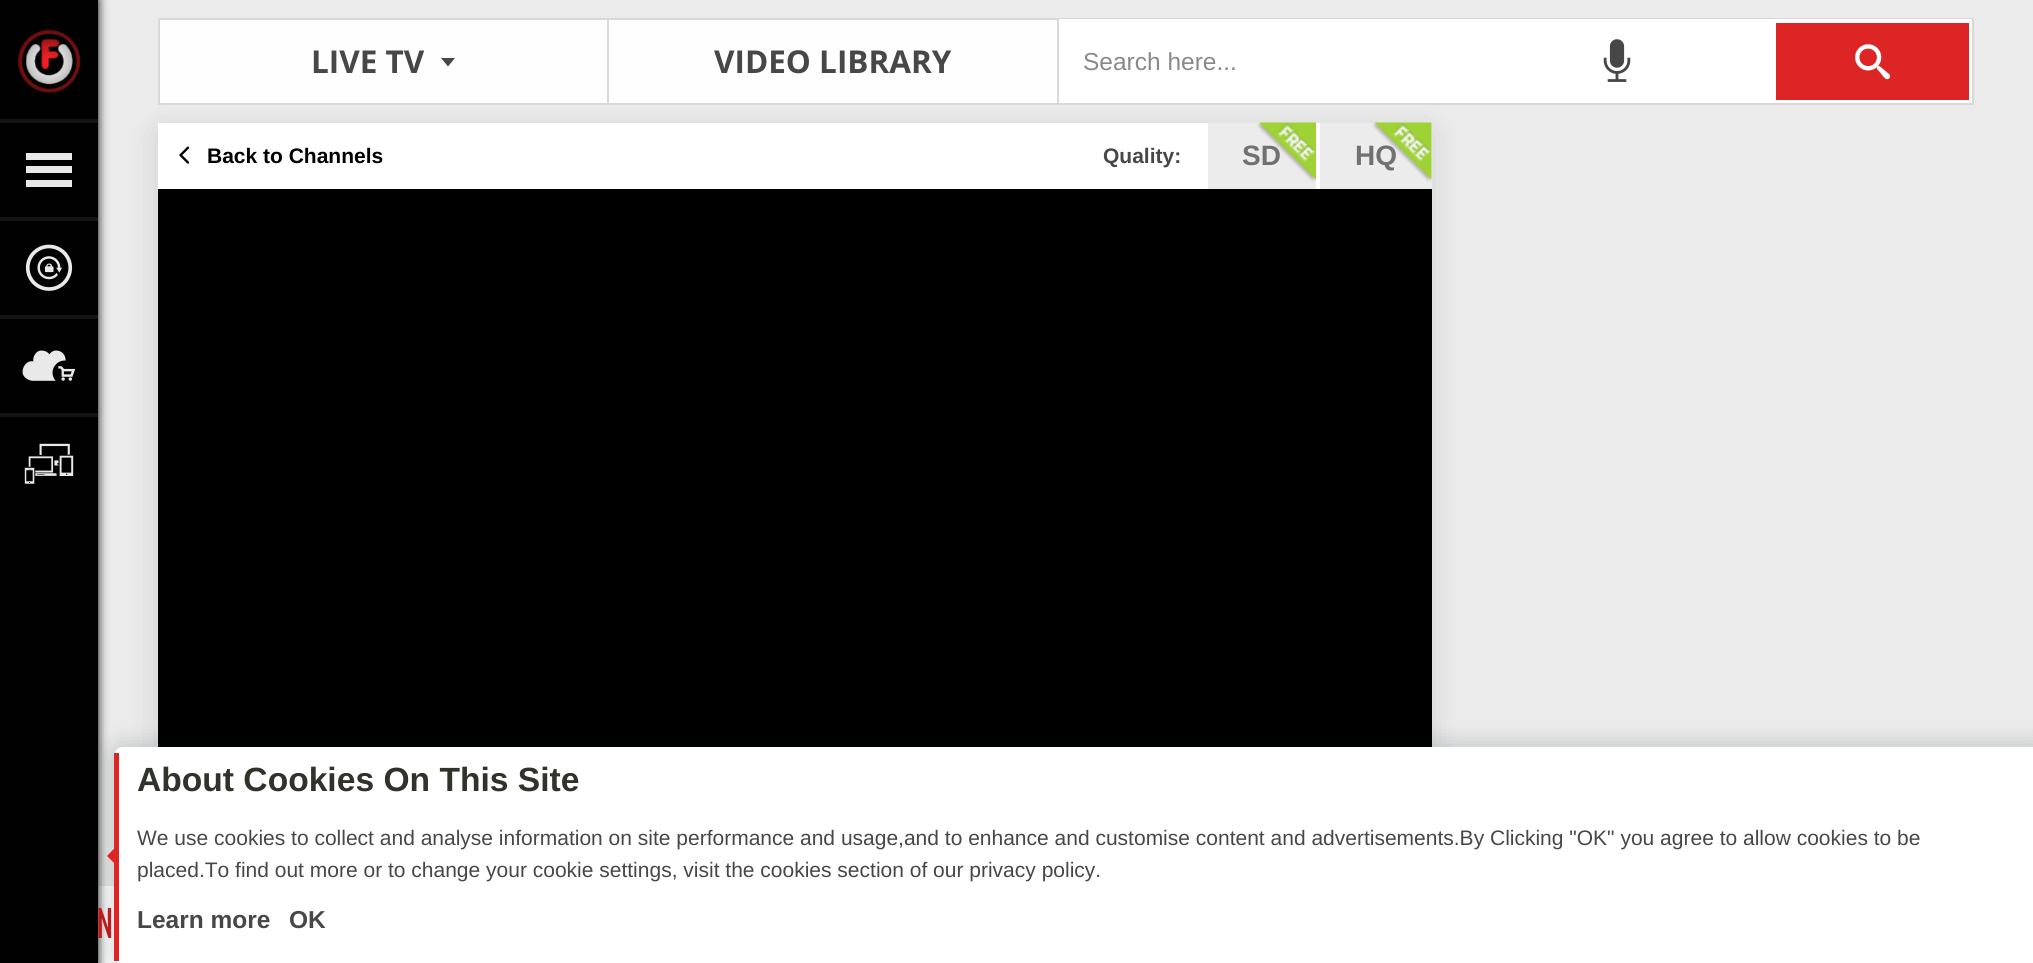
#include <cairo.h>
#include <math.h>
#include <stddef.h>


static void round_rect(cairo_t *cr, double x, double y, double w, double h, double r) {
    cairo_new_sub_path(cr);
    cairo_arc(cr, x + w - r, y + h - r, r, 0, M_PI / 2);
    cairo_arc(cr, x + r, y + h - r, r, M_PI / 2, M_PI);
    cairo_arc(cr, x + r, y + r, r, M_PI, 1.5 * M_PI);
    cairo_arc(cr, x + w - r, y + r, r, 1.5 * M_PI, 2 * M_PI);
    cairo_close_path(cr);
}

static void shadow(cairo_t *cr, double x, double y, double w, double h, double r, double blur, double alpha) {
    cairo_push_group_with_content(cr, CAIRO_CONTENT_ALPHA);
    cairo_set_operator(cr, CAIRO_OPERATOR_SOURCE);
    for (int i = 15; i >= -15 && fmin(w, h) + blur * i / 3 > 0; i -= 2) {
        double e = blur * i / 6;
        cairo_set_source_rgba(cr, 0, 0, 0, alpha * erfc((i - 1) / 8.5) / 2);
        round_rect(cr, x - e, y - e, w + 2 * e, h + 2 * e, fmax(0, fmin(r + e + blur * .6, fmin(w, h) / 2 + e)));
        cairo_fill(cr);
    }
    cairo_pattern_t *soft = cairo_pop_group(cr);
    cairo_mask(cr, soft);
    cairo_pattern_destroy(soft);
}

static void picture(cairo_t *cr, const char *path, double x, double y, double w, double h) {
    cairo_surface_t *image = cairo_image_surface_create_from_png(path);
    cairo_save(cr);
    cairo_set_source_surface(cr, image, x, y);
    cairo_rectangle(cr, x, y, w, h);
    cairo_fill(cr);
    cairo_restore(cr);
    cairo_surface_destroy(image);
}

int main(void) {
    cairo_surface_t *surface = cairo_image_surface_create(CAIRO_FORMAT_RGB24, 2033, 963);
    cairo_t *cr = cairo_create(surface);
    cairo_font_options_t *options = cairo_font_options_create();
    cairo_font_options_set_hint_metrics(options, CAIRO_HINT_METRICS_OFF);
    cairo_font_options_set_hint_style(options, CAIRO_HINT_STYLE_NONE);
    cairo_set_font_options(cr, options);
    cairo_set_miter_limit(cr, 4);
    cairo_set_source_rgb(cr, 0.918, 0.918, 0.918);
    cairo_paint(cr);
    cairo_set_source_rgb(cr, 0, 0.051, 0.102);
    shadow(cr, 161, 133, 1267, 777, 0, 16, 0.15);
    cairo_set_source_rgb(cr, 1, 1, 1);
    cairo_rectangle(cr, 98, 886, 21, 77);
    cairo_fill(cr);
    cairo_set_source_rgb(cr, 0, 0, 0);
    cairo_rectangle(cr, 158, 189, 1274, 558);
    cairo_fill(cr);
    cairo_set_source_rgb(cr, 0, 0.051, 0.102);
    shadow(cr, 109, 742, 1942, 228, 14, 10.5, 0.15);
    cairo_set_source_rgb(cr, 1, 1, 1);
    round_rect(cr, 114, 747, 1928, 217, 9);
    cairo_fill(cr);
    cairo_set_source_rgb(cr, 0.871, 0.145, 0.145);
    cairo_rectangle(cr, 114, 753, 5, 208);
    cairo_fill(cr);
    cairo_new_path(cr);
    cairo_move_to(cr, 119, 843.5);
    cairo_line_to(cr, 119, 868);
    cairo_line_to(cr, 107, 856);
    cairo_close_path(cr);
    cairo_fill(cr);
    cairo_set_source_rgb(cr, 0.004, 0.004, 0.004);
    shadow(cr, 0, 0, 98, 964, 0, 5, 1);
    cairo_set_source_rgb(cr, 0.004, 0.004, 0.004);
    cairo_rectangle(cr, 0, 0, 98, 963);
    cairo_fill(cr);
    picture(cr, "img1.png", 17, 29, 64, 64);
    cairo_set_source_rgb(cr, 0.078, 0.078, 0.078);
    cairo_rectangle(cr, 0, 119, 98, 4);
    cairo_fill(cr);
    cairo_set_source_rgb(cr, 0.914, 0.914, 0.914);
    cairo_new_path(cr);
    cairo_move_to(cr, 72, 160);
    cairo_line_to(cr, 26, 160);
    cairo_line_to(cr, 26, 153);
    cairo_line_to(cr, 72, 153);
    cairo_close_path(cr);
    cairo_move_to(cr, 72, 166);
    cairo_line_to(cr, 26, 166);
    cairo_line_to(cr, 26, 173);
    cairo_line_to(cr, 72, 173);
    cairo_close_path(cr);
    cairo_move_to(cr, 72, 180);
    cairo_line_to(cr, 26, 180);
    cairo_line_to(cr, 26, 187);
    cairo_line_to(cr, 72, 187);
    cairo_close_path(cr);
    cairo_fill(cr);
    cairo_set_source_rgb(cr, 0.078, 0.078, 0.078);
    cairo_rectangle(cr, 0, 217, 98, 4);
    cairo_fill(cr);
    picture(cr, "img2.png", 25, 244, 48, 47);
    cairo_rectangle(cr, 0, 315, 98, 4);
    cairo_fill(cr);
    picture(cr, "img3.png", 22, 350, 54, 31);
    cairo_rectangle(cr, 0, 413, 98, 4);
    cairo_fill(cr);
    picture(cr, "img4.png", 24, 443, 50, 41);
    cairo_set_source_rgb(cr, 0.996, 0.996, 0.996);
    cairo_rectangle(cr, 160, 20, 897, 83);
    cairo_fill(cr);
    cairo_rectangle(cr, 159, 19, 1814, 85);
    cairo_set_source_rgb(cr, 0.847, 0.847, 0.847);
    cairo_stroke(cr);
    cairo_select_font_face(cr, "Open Sans", CAIRO_FONT_SLANT_NORMAL, CAIRO_FONT_WEIGHT_BOLD);
    cairo_set_font_size(cr, 31.5);
    cairo_set_source_rgb(cr, 0.278, 0.278, 0.278);
    cairo_move_to(cr, 311, 73);
    cairo_show_text(cr, "LIVE TV");
    cairo_new_path(cr);
    cairo_move_to(cr, 441, 58);
    cairo_line_to(cr, 455, 58);
    cairo_line_to(cr, 448, 66.5);
    cairo_close_path(cr);
    cairo_fill(cr);
    cairo_set_source_rgb(cr, 0.847, 0.847, 0.847);
    cairo_rectangle(cr, 607, 19, 2, 84);
    cairo_fill(cr);
    cairo_set_source_rgb(cr, 0.278, 0.278, 0.278);
    cairo_move_to(cr, 714, 73);
    cairo_show_text(cr, "VIDEO LIBRARY");
    cairo_set_source_rgb(cr, 0.847, 0.847, 0.847);
    cairo_rectangle(cr, 1057, 19, 2, 84);
    cairo_fill(cr);
    cairo_set_source_rgb(cr, 1, 1, 1);
    cairo_rectangle(cr, 1059, 19, 913, 84);
    cairo_fill(cr);
    cairo_select_font_face(cr, "Liberation Sans", CAIRO_FONT_SLANT_NORMAL, CAIRO_FONT_WEIGHT_NORMAL);
    cairo_set_font_size(cr, 24.5);
    cairo_set_source_rgb(cr, 0.537, 0.537, 0.537);
    cairo_move_to(cr, 1083, 70);
    cairo_show_text(cr, "Search here...");
    picture(cr, "img5.png", 1603, 39, 28, 43);
    cairo_set_source_rgb(cr, 0.871, 0.145, 0.145);
    cairo_rectangle(cr, 1776, 23, 193, 77);
    cairo_fill(cr);
    picture(cr, "img6.png", 1855, 44, 35, 36);
    cairo_set_source_rgb(cr, 1, 1, 1);
    cairo_rectangle(cr, 158, 123, 1162, 66);
    cairo_fill(cr);
    picture(cr, "img7.png", 179, 146, 11, 18);
    cairo_select_font_face(cr, "Liberation Sans", CAIRO_FONT_SLANT_NORMAL, CAIRO_FONT_WEIGHT_BOLD);
    cairo_set_font_size(cr, 21);
    cairo_set_source_rgb(cr, 0, 0, 0);
    cairo_move_to(cr, 207, 163);
    cairo_show_text(cr, "Back to Channels");
    cairo_set_source_rgb(cr, 0.278, 0.278, 0.278);
    cairo_move_to(cr, 1103, 163);
    cairo_show_text(cr, "Quality:");
    cairo_set_source_rgb(cr, 0.922, 0.922, 0.922);
    cairo_rectangle(cr, 1208, 123, 108, 66);
    cairo_fill(cr);
    cairo_set_font_size(cr, 28);
    cairo_set_source_rgb(cr, 0.443, 0.443, 0.443);
    cairo_move_to(cr, 1242, 165);
    cairo_show_text(cr, "SD");
    picture(cr, "img8.png", 1257, 122, 59, 60);
    cairo_set_source_rgb(cr, 0.922, 0.922, 0.922);
    cairo_rectangle(cr, 1320, 123, 112, 66);
    cairo_fill(cr);
    cairo_set_source_rgb(cr, 0.443, 0.443, 0.443);
    cairo_move_to(cr, 1355, 165);
    cairo_show_text(cr, "HQ");
    picture(cr, "img9.png", 1372, 122, 60, 60);
    cairo_select_font_face(cr, "Antonio Medium", CAIRO_FONT_SLANT_NORMAL, CAIRO_FONT_WEIGHT_NORMAL);
    cairo_set_font_size(cr, 35);
    cairo_set_source_rgb(cr, 0.745, 0.106, 0.106);
    cairo_move_to(cr, 96, 938);
    cairo_show_text(cr, "N");
    cairo_select_font_face(cr, "Liberation Sans", CAIRO_FONT_SLANT_NORMAL, CAIRO_FONT_WEIGHT_BOLD);
    cairo_set_font_size(cr, 33.6);
    cairo_set_source_rgb(cr, 0.184, 0.2, 0.165);
    cairo_move_to(cr, 137, 791);
    cairo_show_text(cr, "About Cookies On This Site");
    cairo_select_font_face(cr, "Liberation Sans", CAIRO_FONT_SLANT_NORMAL, CAIRO_FONT_WEIGHT_NORMAL);
    cairo_set_font_size(cr, 21);
    cairo_set_source_rgb(cr, 0.278, 0.278, 0.278);
    cairo_move_to(cr, 137, 845);
    cairo_show_text(cr, "We use cookies to collect and analyse information on site performance and usage,and to enhance and customise content and advertisements.By Clicking \"OK\" you agree to allow cookies to be");
    cairo_move_to(cr, 137, 877);
    cairo_show_text(cr, "placed.To find out more or to change your cookie settings, visit the cookies section of our privacy policy.");
    cairo_select_font_face(cr, "Liberation Sans", CAIRO_FONT_SLANT_NORMAL, CAIRO_FONT_WEIGHT_BOLD);
    cairo_set_font_size(cr, 24.5);
    cairo_move_to(cr, 137, 928);
    cairo_show_text(cr, "Learn more");
    cairo_move_to(cr, 289, 928);
    cairo_show_text(cr, "OK");
    cairo_surface_write_to_png(surface, "page.png");
    cairo_font_options_destroy(options);
    cairo_destroy(cr);
    cairo_surface_destroy(surface);
    return 0;
}
